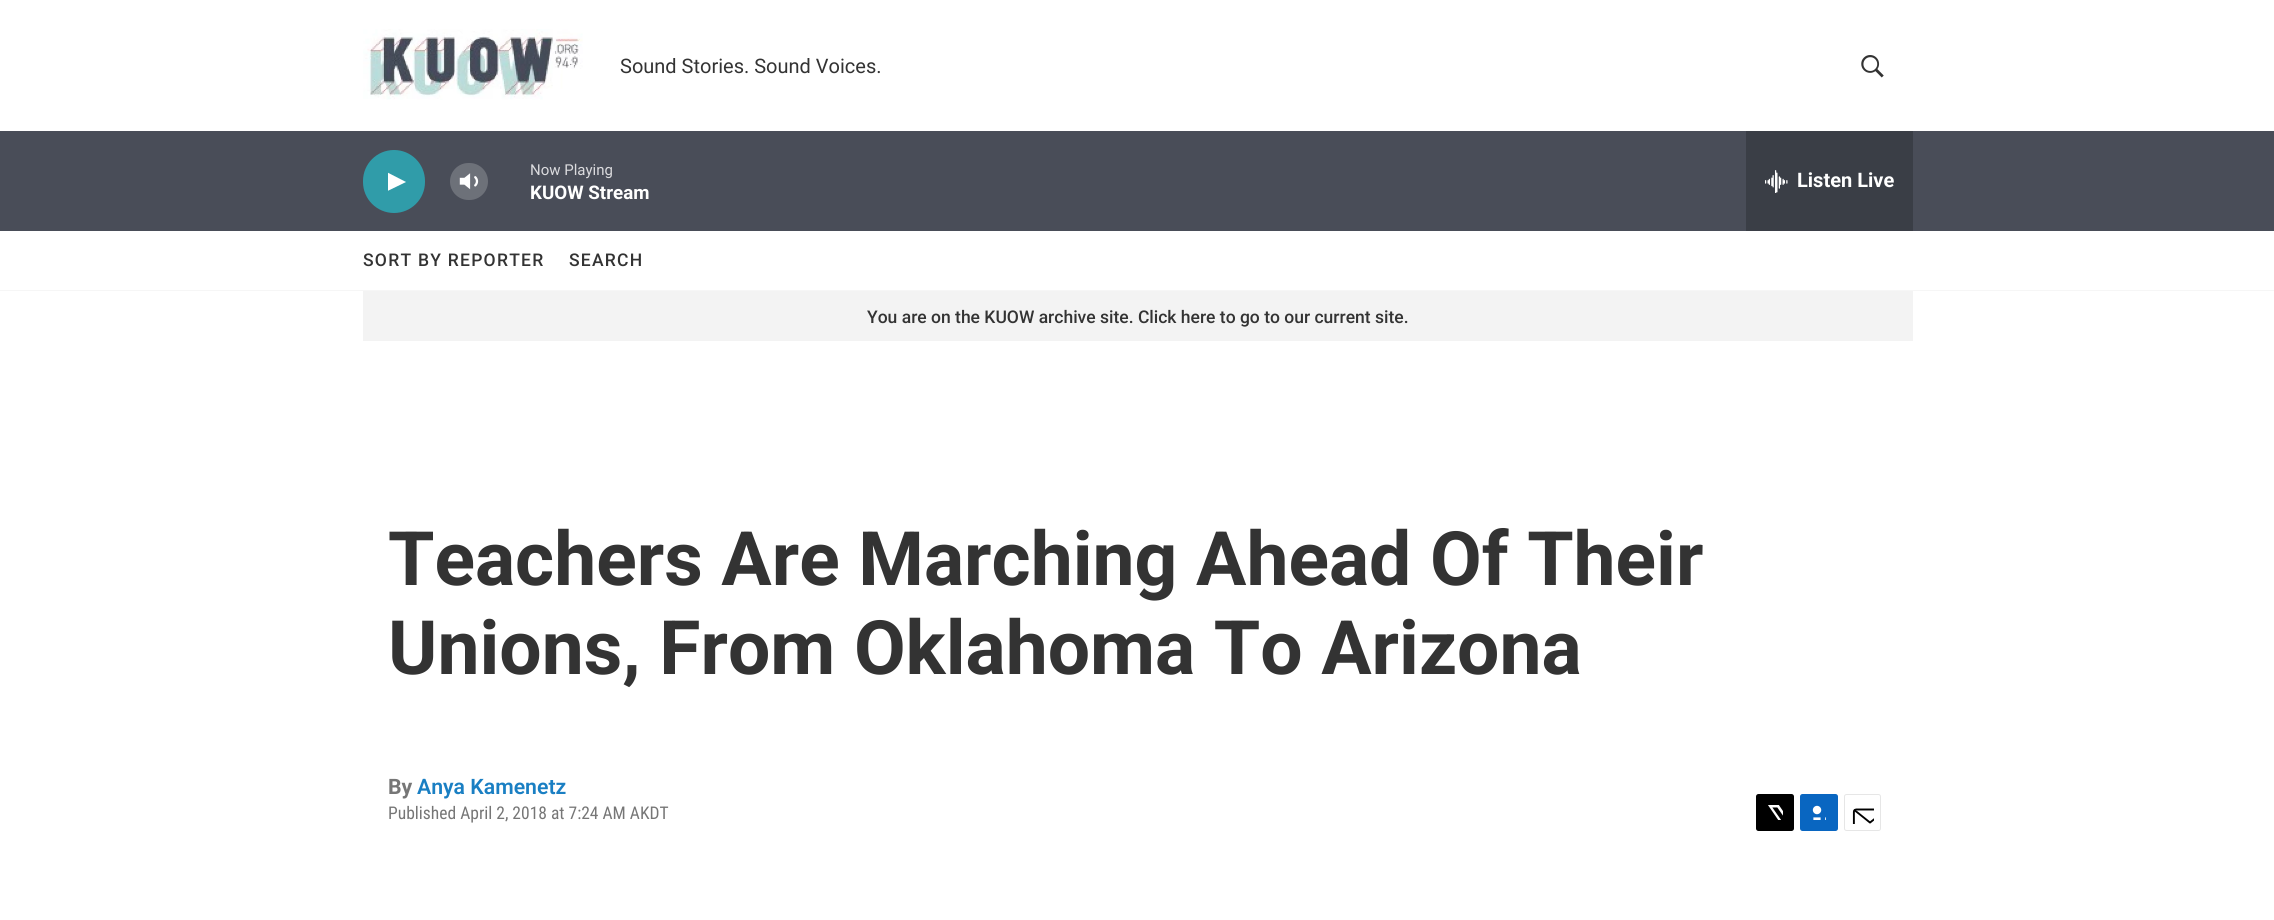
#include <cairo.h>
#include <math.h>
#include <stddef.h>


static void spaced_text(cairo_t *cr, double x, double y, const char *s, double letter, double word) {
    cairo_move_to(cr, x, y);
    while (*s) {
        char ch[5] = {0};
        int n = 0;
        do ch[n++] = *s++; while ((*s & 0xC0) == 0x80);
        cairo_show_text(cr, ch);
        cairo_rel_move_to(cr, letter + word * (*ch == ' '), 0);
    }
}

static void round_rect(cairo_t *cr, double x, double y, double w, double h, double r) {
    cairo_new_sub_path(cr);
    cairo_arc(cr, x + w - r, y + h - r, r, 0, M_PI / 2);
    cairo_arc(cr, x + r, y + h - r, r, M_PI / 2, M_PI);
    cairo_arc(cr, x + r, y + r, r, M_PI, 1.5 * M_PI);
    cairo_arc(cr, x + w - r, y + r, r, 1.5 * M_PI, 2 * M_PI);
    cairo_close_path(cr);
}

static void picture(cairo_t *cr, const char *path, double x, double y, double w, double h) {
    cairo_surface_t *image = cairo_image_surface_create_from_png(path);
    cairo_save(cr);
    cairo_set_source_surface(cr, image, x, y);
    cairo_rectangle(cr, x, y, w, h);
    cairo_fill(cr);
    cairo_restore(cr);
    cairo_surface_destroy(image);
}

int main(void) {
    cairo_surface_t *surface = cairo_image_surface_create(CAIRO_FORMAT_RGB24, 2274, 920);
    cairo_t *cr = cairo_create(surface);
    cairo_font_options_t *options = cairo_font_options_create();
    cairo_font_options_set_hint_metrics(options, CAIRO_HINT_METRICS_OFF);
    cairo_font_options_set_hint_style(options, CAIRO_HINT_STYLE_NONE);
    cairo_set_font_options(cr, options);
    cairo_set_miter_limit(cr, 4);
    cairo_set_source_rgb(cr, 1, 1, 1);
    cairo_paint(cr);
    cairo_set_source_rgb(cr, 0.961, 0.961, 0.961);
    cairo_rectangle(cr, 0, 290, 2274, 1);
    cairo_fill(cr);
    picture(cr, "img1.png", 363, 29, 220, 71);
    cairo_select_font_face(cr, "Roboto", CAIRO_FONT_SLANT_NORMAL, CAIRO_FONT_WEIGHT_NORMAL);
    cairo_set_font_size(cr, 20);
    cairo_set_source_rgb(cr, 0.2, 0.2, 0.2);
    cairo_move_to(cr, 620, 73);
    cairo_show_text(cr, "Sound Stories. Sound Voices.");
    picture(cr, "img2.png", 1861, 55, 23, 23);
    cairo_set_source_rgb(cr, 0.286, 0.302, 0.345);
    cairo_rectangle(cr, 0, 131, 2274, 100);
    cairo_fill(cr);
    cairo_set_source_rgb(cr, 0.188, 0.612, 0.663);
    round_rect(cr, 363, 150, 62, 63, 31);
    cairo_fill(cr);
    cairo_save(cr);
    cairo_rectangle(cr, 388, 170, 18, 24);
    cairo_clip(cr);
    cairo_set_source_rgb(cr, 1, 1, 1);
    cairo_new_path(cr);
    cairo_move_to(cr, 387.5, 172.5);
    cairo_line_to(cr, 406, 182);
    cairo_line_to(cr, 387.5, 191);
    cairo_close_path(cr);
    cairo_fill(cr);
    cairo_restore(cr);
    picture(cr, "img3.png", 459, 173, 20, 17);
    cairo_set_source_rgba(cr, 1, 1, 1, 0.2);
    round_rect(cr, 450, 163, 38, 37, 18.5);
    cairo_fill(cr);
    cairo_set_font_size(cr, 15);
    cairo_set_source_rgb(cr, 0.859, 0.859, 0.871);
    cairo_move_to(cr, 530, 175);
    cairo_show_text(cr, "Now Playing");
    cairo_select_font_face(cr, "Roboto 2", CAIRO_FONT_SLANT_NORMAL, CAIRO_FONT_WEIGHT_BOLD);
    cairo_set_font_size(cr, 18.75);
    cairo_set_source_rgb(cr, 1, 1, 1);
    cairo_move_to(cr, 530, 199);
    cairo_show_text(cr, "KUOW Stream");
    cairo_set_source_rgb(cr, 0.227, 0.243, 0.275);
    cairo_rectangle(cr, 1746, 131, 167, 100);
    cairo_fill(cr);
    picture(cr, "img4.png", 1765, 170, 23, 23);
    cairo_set_font_size(cr, 20);
    cairo_set_source_rgb(cr, 1, 1, 1);
    cairo_move_to(cr, 1797, 187);
    cairo_show_text(cr, "Listen Live");
    cairo_select_font_face(cr, "Roboto Medium", CAIRO_FONT_SLANT_NORMAL, CAIRO_FONT_WEIGHT_NORMAL);
    cairo_set_font_size(cr, 17.5);
    cairo_set_source_rgb(cr, 0.2, 0.2, 0.2);
    spaced_text(cr, 363, 266, "SORT BY REPORTER", 1.25, 0);
    spaced_text(cr, 569, 266, "SEARCH", 1.25, 0);
    cairo_set_source_rgb(cr, 0.953, 0.953, 0.953);
    cairo_rectangle(cr, 363, 291, 1550, 50);
    cairo_fill(cr);
    cairo_set_source_rgb(cr, 0.2, 0.2, 0.2);
    cairo_move_to(cr, 867, 323);
    cairo_show_text(cr, "You are on the KUOW archive site. Click here to go to our current site.");
    cairo_select_font_face(cr, "Roboto", CAIRO_FONT_SLANT_NORMAL, CAIRO_FONT_WEIGHT_BOLD);
    cairo_set_font_size(cr, 75);
    cairo_move_to(cr, 388, 585);
    cairo_show_text(cr, "Teachers Are Marching Ahead Of Their");
    cairo_move_to(cr, 388, 674);
    cairo_show_text(cr, "Unions, From Oklahoma To Arizona");
    cairo_set_font_size(cr, 21.25);
    cairo_set_source_rgb(cr, 0.463, 0.463, 0.463);
    cairo_move_to(cr, 388, 794);
    cairo_show_text(cr, "By");
    cairo_select_font_face(cr, "Roboto SemiBold", CAIRO_FONT_SLANT_NORMAL, CAIRO_FONT_WEIGHT_NORMAL);
    cairo_set_source_rgb(cr, 0.102, 0.498, 0.765);
    cairo_move_to(cr, 417, 794);
    cairo_show_text(cr, "Anya Kamenetz");
    cairo_select_font_face(cr, "Roboto Condensed", CAIRO_FONT_SLANT_NORMAL, CAIRO_FONT_WEIGHT_NORMAL);
    cairo_set_font_size(cr, 17.5);
    cairo_set_source_rgb(cr, 0.463, 0.463, 0.463);
    cairo_move_to(cr, 388, 819);
    cairo_show_text(cr, "Published April 2, 2018 at 7:24 AM AKDT");
    cairo_set_source_rgb(cr, 0, 0, 0);
    round_rect(cr, 1756, 794, 38, 37, 2.5);
    cairo_fill(cr);
    picture(cr, "img5.png", 1768, 805, 15, 15);
    cairo_set_source_rgb(cr, 0.039, 0.4, 0.757);
    round_rect(cr, 1800, 794, 38, 37, 2.5);
    cairo_fill(cr);
    picture(cr, "img6.png", 1812, 805, 14, 15);
    round_rect(cr, 1844.5, 794.5, 36, 36, 2);
    cairo_set_source_rgb(cr, 0.902, 0.902, 0.902);
    cairo_set_line_width(cr, 1);
    cairo_stroke(cr);
    picture(cr, "img7.png", 1852, 808, 22, 16);
    cairo_surface_write_to_png(surface, "page.png");
    cairo_font_options_destroy(options);
    cairo_destroy(cr);
    cairo_surface_destroy(surface);
    return 0;
}
